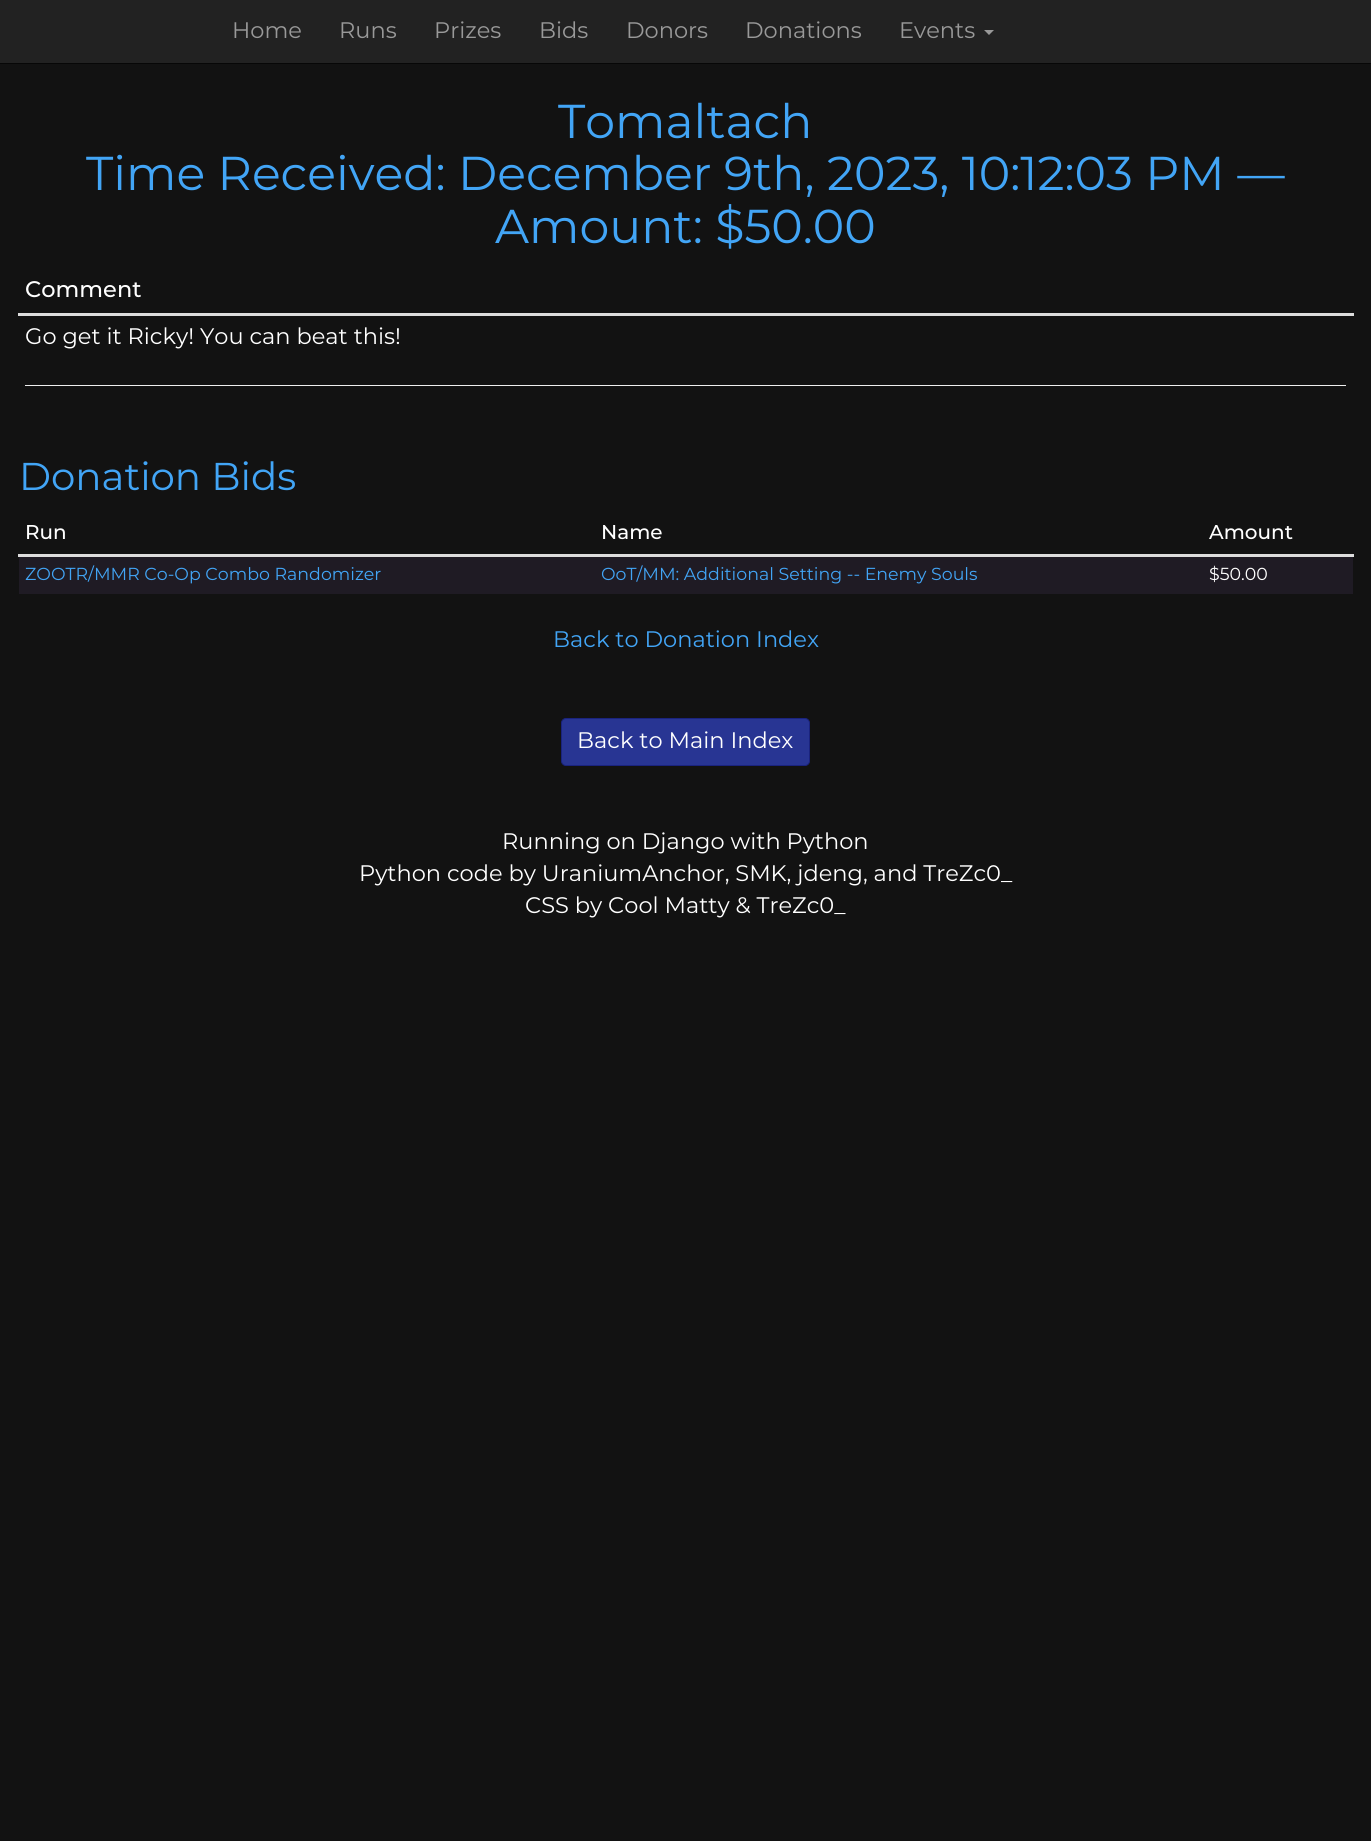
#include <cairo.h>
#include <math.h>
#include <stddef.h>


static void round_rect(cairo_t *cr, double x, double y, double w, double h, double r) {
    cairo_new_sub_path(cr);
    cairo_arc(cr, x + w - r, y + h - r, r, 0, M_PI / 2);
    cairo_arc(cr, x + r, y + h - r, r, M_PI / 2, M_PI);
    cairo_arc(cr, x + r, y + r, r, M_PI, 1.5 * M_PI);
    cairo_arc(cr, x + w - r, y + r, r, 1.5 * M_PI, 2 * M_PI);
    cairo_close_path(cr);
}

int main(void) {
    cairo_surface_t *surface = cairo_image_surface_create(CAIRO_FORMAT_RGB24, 1371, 1841);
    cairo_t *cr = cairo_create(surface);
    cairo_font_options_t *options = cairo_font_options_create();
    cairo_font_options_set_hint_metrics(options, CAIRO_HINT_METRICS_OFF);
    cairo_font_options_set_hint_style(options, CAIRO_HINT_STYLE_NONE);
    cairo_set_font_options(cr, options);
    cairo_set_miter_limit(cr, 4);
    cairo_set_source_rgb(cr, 0.071, 0.071, 0.071);
    cairo_paint(cr);
    cairo_set_source_rgb(cr, 0.133, 0.133, 0.133);
    cairo_rectangle(cr, 0, 0, 1371, 63);
    cairo_fill(cr);
    cairo_set_source_rgb(cr, 0.031, 0.031, 0.031);
    cairo_rectangle(cr, 0, 63, 1371, 1);
    cairo_fill(cr);
    cairo_select_font_face(cr, "Montserrat", CAIRO_FONT_SLANT_NORMAL, CAIRO_FONT_WEIGHT_NORMAL);
    cairo_set_font_size(cr, 22.5);
    cairo_set_source_rgb(cr, 0.6, 0.6, 0.6);
    cairo_move_to(cr, 232, 38);
    cairo_show_text(cr, "Home");
    cairo_move_to(cr, 339, 38);
    cairo_show_text(cr, "Runs");
    cairo_move_to(cr, 434, 38);
    cairo_show_text(cr, "Prizes");
    cairo_move_to(cr, 539, 38);
    cairo_show_text(cr, "Bids");
    cairo_move_to(cr, 626, 38);
    cairo_show_text(cr, "Donors");
    cairo_move_to(cr, 745, 38);
    cairo_show_text(cr, "Donations");
    cairo_move_to(cr, 899, 38);
    cairo_show_text(cr, "Events");
    cairo_new_path(cr);
    cairo_move_to(cr, 984, 30);
    cairo_line_to(cr, 994, 30);
    cairo_line_to(cr, 989, 35);
    cairo_close_path(cr);
    cairo_fill(cr);
    cairo_set_font_size(cr, 47.5);
    cairo_set_source_rgb(cr, 0.259, 0.647, 0.961);
    cairo_move_to(cr, 558, 138);
    cairo_show_text(cr, "Tomaltach");
    cairo_move_to(cr, 86, 190);
    cairo_show_text(cr, "Time Received: December 9th, 2023, 10:12:03 PM —");
    cairo_move_to(cr, 495, 243);
    cairo_show_text(cr, "Amount: $50.00");
    cairo_set_source_rgb(cr, 0.867, 0.867, 0.867);
    cairo_rectangle(cr, 18, 313, 1336, 3);
    cairo_fill(cr);
    cairo_select_font_face(cr, "Montserrat Medium", CAIRO_FONT_SLANT_NORMAL, CAIRO_FONT_WEIGHT_NORMAL);
    cairo_set_font_size(cr, 22.5);
    cairo_set_source_rgb(cr, 1, 1, 1);
    cairo_move_to(cr, 25, 297);
    cairo_show_text(cr, "Comment");
    cairo_select_font_face(cr, "Montserrat", CAIRO_FONT_SLANT_NORMAL, CAIRO_FONT_WEIGHT_NORMAL);
    cairo_move_to(cr, 25, 344);
    cairo_show_text(cr, "Go get it Ricky! You can beat this!");
    cairo_set_source_rgb(cr, 0.933, 0.933, 0.933);
    cairo_rectangle(cr, 25, 385, 1321, 1);
    cairo_fill(cr);
    cairo_set_font_size(cr, 38.75);
    cairo_set_source_rgb(cr, 0.259, 0.647, 0.961);
    cairo_move_to(cr, 19, 490);
    cairo_show_text(cr, "Donation Bids");
    cairo_select_font_face(cr, "Montserrat Medium", CAIRO_FONT_SLANT_NORMAL, CAIRO_FONT_WEIGHT_NORMAL);
    cairo_set_font_size(cr, 20);
    cairo_set_source_rgb(cr, 1, 1, 1);
    cairo_move_to(cr, 25, 539);
    cairo_show_text(cr, "Run");
    cairo_move_to(cr, 601, 539);
    cairo_show_text(cr, "Name");
    cairo_set_source_rgb(cr, 0.867, 0.867, 0.867);
    cairo_rectangle(cr, 18, 554, 1336, 3);
    cairo_fill(cr);
    cairo_set_source_rgb(cr, 1, 1, 1);
    cairo_move_to(cr, 1209, 539);
    cairo_show_text(cr, "Amount");
    cairo_set_source_rgb(cr, 0.122, 0.106, 0.141);
    cairo_rectangle(cr, 19, 557, 1334, 37);
    cairo_fill(cr);
    cairo_select_font_face(cr, "Montserrat", CAIRO_FONT_SLANT_NORMAL, CAIRO_FONT_WEIGHT_NORMAL);
    cairo_set_font_size(cr, 17.4);
    cairo_set_source_rgb(cr, 0.259, 0.647, 0.961);
    cairo_move_to(cr, 25, 580);
    cairo_show_text(cr, "ZOOTR/MMR Co-Op Combo Randomizer");
    cairo_move_to(cr, 601, 580);
    cairo_show_text(cr, "OoT/MM: Additional Setting -- Enemy Souls");
    cairo_set_source_rgb(cr, 1, 1, 1);
    cairo_move_to(cr, 1209, 580);
    cairo_show_text(cr, "$50.00");
    cairo_set_font_size(cr, 22.5);
    cairo_set_source_rgb(cr, 0.259, 0.647, 0.961);
    cairo_move_to(cr, 553, 647);
    cairo_show_text(cr, "Back to Donation Index");
    cairo_set_source_rgb(cr, 0.157, 0.208, 0.576);
    round_rect(cr, 561.5, 718.5, 248, 47, 4.5);
    cairo_fill_preserve(cr);
    cairo_set_source_rgb(cr, 0.102, 0.137, 0.494);
    cairo_set_line_width(cr, 1);
    cairo_stroke(cr);
    cairo_set_source_rgb(cr, 1, 1, 1);
    cairo_move_to(cr, 577, 748);
    cairo_show_text(cr, "Back to Main Index");
    cairo_move_to(cr, 502, 849);
    cairo_show_text(cr, "Running on Django with Python");
    cairo_move_to(cr, 359, 881);
    cairo_show_text(cr, "Python code by UraniumAnchor, SMK, jdeng, and TreZc0_");
    cairo_move_to(cr, 525, 913);
    cairo_show_text(cr, "CSS by Cool Matty & TreZc0_");
    cairo_surface_write_to_png(surface, "page.png");
    cairo_font_options_destroy(options);
    cairo_destroy(cr);
    cairo_surface_destroy(surface);
    return 0;
}
